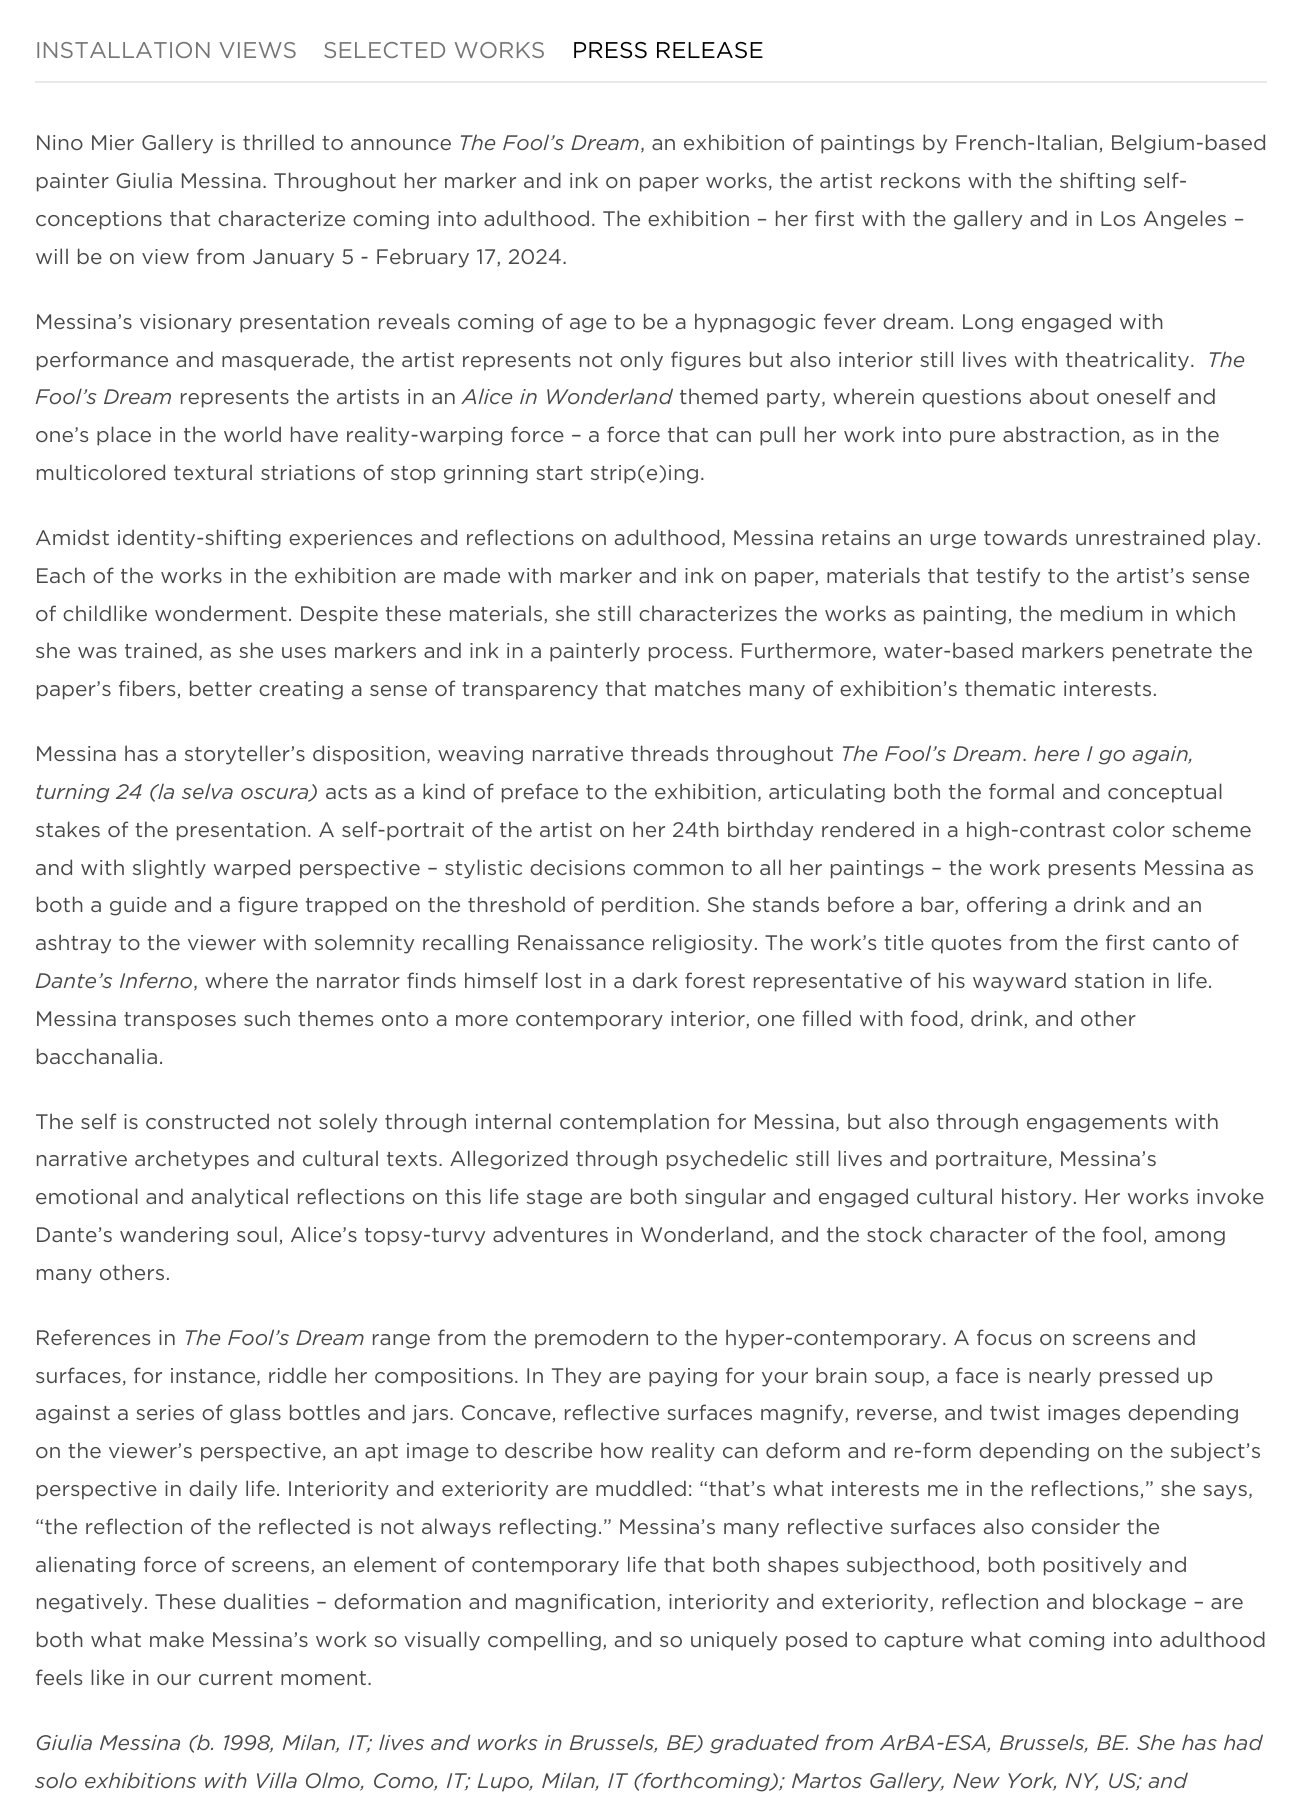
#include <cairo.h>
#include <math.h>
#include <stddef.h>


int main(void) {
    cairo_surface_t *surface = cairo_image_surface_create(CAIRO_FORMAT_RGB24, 1301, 1798);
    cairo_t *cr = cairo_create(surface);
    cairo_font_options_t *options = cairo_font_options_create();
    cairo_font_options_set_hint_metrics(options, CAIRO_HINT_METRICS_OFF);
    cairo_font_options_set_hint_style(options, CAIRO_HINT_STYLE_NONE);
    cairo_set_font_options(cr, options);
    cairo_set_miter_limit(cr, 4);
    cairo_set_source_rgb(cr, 1, 1, 1);
    cairo_paint(cr);
    cairo_set_source_rgb(cr, 0.914, 0.914, 0.914);
    cairo_rectangle(cr, 35, 81, 1232, 2);
    cairo_fill(cr);
    cairo_select_font_face(cr, "Gotham", CAIRO_FONT_SLANT_NORMAL, CAIRO_FONT_WEIGHT_NORMAL);
    cairo_set_font_size(cr, 22.75);
    cairo_set_source_rgb(cr, 0.463, 0.463, 0.463);
    cairo_move_to(cr, 35, 58);
    cairo_show_text(cr, "INSTALLATION VIEWS");
    cairo_move_to(cr, 323, 58);
    cairo_show_text(cr, "SELECTED WORKS");
    cairo_set_source_rgb(cr, 0, 0, 0);
    cairo_move_to(cr, 572, 58);
    cairo_show_text(cr, "PRESS RELEASE");
    cairo_set_font_size(cr, 21);
    cairo_set_source_rgb(cr, 0.286, 0.286, 0.286);
    cairo_move_to(cr, 35, 150);
    cairo_show_text(cr, "Nino Mier Gallery is thrilled to announce");
    cairo_select_font_face(cr, "Gotham", CAIRO_FONT_SLANT_ITALIC, CAIRO_FONT_WEIGHT_NORMAL);
    cairo_move_to(cr, 458, 150);
    cairo_show_text(cr, "The Fool’s Dream");
    cairo_select_font_face(cr, "Gotham", CAIRO_FONT_SLANT_NORMAL, CAIRO_FONT_WEIGHT_NORMAL);
    cairo_move_to(cr, 640, 150);
    cairo_show_text(cr, ", an exhibition of paintings by French-Italian, Belgium-based");
    cairo_move_to(cr, 35, 188);
    cairo_show_text(cr, "painter Giulia Messina. Throughout her marker and ink on paper works, the artist reckons with the shifting self-");
    cairo_move_to(cr, 35, 226);
    cairo_show_text(cr, "conceptions that characterize coming into adulthood. The exhibition – her first with the gallery and in Los Angeles –");
    cairo_move_to(cr, 35, 264);
    cairo_show_text(cr, "will be on view from January 5 - February 17, 2024.");
    cairo_move_to(cr, 35, 329);
    cairo_show_text(cr, "Messina’s visionary presentation reveals coming of age to be a hypnagogic fever dream. Long engaged with");
    cairo_move_to(cr, 35, 367);
    cairo_show_text(cr, "performance and masquerade, the artist represents not only figures but also interior still lives with theatricality.");
    cairo_select_font_face(cr, "Gotham", CAIRO_FONT_SLANT_ITALIC, CAIRO_FONT_WEIGHT_NORMAL);
    cairo_move_to(cr, 1207, 367);
    cairo_show_text(cr, "The");
    cairo_move_to(cr, 35, 404);
    cairo_show_text(cr, "Fool’s Dream");
    cairo_select_font_face(cr, "Gotham", CAIRO_FONT_SLANT_NORMAL, CAIRO_FONT_WEIGHT_NORMAL);
    cairo_move_to(cr, 179, 404);
    cairo_show_text(cr, "represents the artists in an");
    cairo_select_font_face(cr, "Gotham", CAIRO_FONT_SLANT_ITALIC, CAIRO_FONT_WEIGHT_NORMAL);
    cairo_move_to(cr, 462, 404);
    cairo_show_text(cr, "Alice in Wonderland");
    cairo_select_font_face(cr, "Gotham", CAIRO_FONT_SLANT_NORMAL, CAIRO_FONT_WEIGHT_NORMAL);
    cairo_move_to(cr, 679, 404);
    cairo_show_text(cr, "themed party, wherein questions about oneself and");
    cairo_move_to(cr, 35, 442);
    cairo_show_text(cr, "one’s place in the world have reality-warping force – a force that can pull her work into pure abstraction, as in the");
    cairo_move_to(cr, 35, 480);
    cairo_show_text(cr, "multicolored textural striations of stop grinning start strip(e)ing.");
    cairo_move_to(cr, 35, 545);
    cairo_show_text(cr, "Amidst identity-shifting experiences and reflections on adulthood, Messina retains an urge towards unrestrained play.");
    cairo_move_to(cr, 35, 583);
    cairo_show_text(cr, "Each of the works in the exhibition are made with marker and ink on paper, materials that testify to the artist’s sense");
    cairo_move_to(cr, 35, 621);
    cairo_show_text(cr, "of childlike wonderment. Despite these materials, she still characterizes the works as painting, the medium in which");
    cairo_move_to(cr, 35, 658);
    cairo_show_text(cr, "she was trained, as she uses markers and ink in a painterly process. Furthermore, water-based markers penetrate the");
    cairo_move_to(cr, 35, 696);
    cairo_show_text(cr, "paper’s fibers, better creating a sense of transparency that matches many of exhibition’s thematic interests.");
    cairo_move_to(cr, 35, 761);
    cairo_show_text(cr, "Messina has a storyteller’s disposition, weaving narrative threads throughout");
    cairo_select_font_face(cr, "Gotham", CAIRO_FONT_SLANT_ITALIC, CAIRO_FONT_WEIGHT_NORMAL);
    cairo_move_to(cr, 840, 761);
    cairo_show_text(cr, "The Fool’s Dream");
    cairo_select_font_face(cr, "Gotham", CAIRO_FONT_SLANT_NORMAL, CAIRO_FONT_WEIGHT_NORMAL);
    cairo_move_to(cr, 1022, 761);
    cairo_show_text(cr, ".");
    cairo_select_font_face(cr, "Gotham", CAIRO_FONT_SLANT_ITALIC, CAIRO_FONT_WEIGHT_NORMAL);
    cairo_move_to(cr, 1034, 761);
    cairo_show_text(cr, "here I go again,");
    cairo_move_to(cr, 35, 799);
    cairo_show_text(cr, "turning 24 (la selva oscura)");
    cairo_select_font_face(cr, "Gotham", CAIRO_FONT_SLANT_NORMAL, CAIRO_FONT_WEIGHT_NORMAL);
    cairo_move_to(cr, 325, 799);
    cairo_show_text(cr, "acts as a kind of preface to the exhibition, articulating both the formal and conceptual");
    cairo_move_to(cr, 35, 837);
    cairo_show_text(cr, "stakes of the presentation. A self-portrait of the artist on her 24th birthday rendered in a high-contrast color scheme");
    cairo_move_to(cr, 35, 875);
    cairo_show_text(cr, "and with slightly warped perspective – stylistic decisions common to all her paintings – the work presents Messina as");
    cairo_move_to(cr, 35, 912);
    cairo_show_text(cr, "both a guide and a figure trapped on the threshold of perdition. She stands before a bar, offering a drink and an");
    cairo_move_to(cr, 35, 950);
    cairo_show_text(cr, "ashtray to the viewer with solemnity recalling Renaissance religiosity. The work’s title quotes from the first canto of");
    cairo_select_font_face(cr, "Gotham", CAIRO_FONT_SLANT_ITALIC, CAIRO_FONT_WEIGHT_NORMAL);
    cairo_move_to(cr, 35, 988);
    cairo_show_text(cr, "Dante’s Inferno");
    cairo_select_font_face(cr, "Gotham", CAIRO_FONT_SLANT_NORMAL, CAIRO_FONT_WEIGHT_NORMAL);
    cairo_move_to(cr, 193, 988);
    cairo_show_text(cr, ", where the narrator finds himself lost in a dark forest representative of his wayward station in life.");
    cairo_move_to(cr, 35, 1026);
    cairo_show_text(cr, "Messina transposes such themes onto a more contemporary interior, one filled with food, drink, and other");
    cairo_move_to(cr, 35, 1064);
    cairo_show_text(cr, "bacchanalia.");
    cairo_move_to(cr, 35, 1129);
    cairo_show_text(cr, "The self is constructed not solely through internal contemplation for Messina, but also through engagements with");
    cairo_move_to(cr, 35, 1166);
    cairo_show_text(cr, "narrative archetypes and cultural texts. Allegorized through psychedelic still lives and portraiture, Messina’s");
    cairo_move_to(cr, 35, 1204);
    cairo_show_text(cr, "emotional and analytical reflections on this life stage are both singular and engaged cultural history. Her works invoke");
    cairo_move_to(cr, 35, 1242);
    cairo_show_text(cr, "Dante’s wandering soul, Alice’s topsy-turvy adventures in Wonderland, and the stock character of the fool, among");
    cairo_move_to(cr, 35, 1280);
    cairo_show_text(cr, "many others.");
    cairo_move_to(cr, 35, 1345);
    cairo_show_text(cr, "References in");
    cairo_select_font_face(cr, "Gotham", CAIRO_FONT_SLANT_ITALIC, CAIRO_FONT_WEIGHT_NORMAL);
    cairo_move_to(cr, 183, 1345);
    cairo_show_text(cr, "The Fool’s Dream");
    cairo_select_font_face(cr, "Gotham", CAIRO_FONT_SLANT_NORMAL, CAIRO_FONT_WEIGHT_NORMAL);
    cairo_move_to(cr, 371, 1345);
    cairo_show_text(cr, "range from the premodern to the hyper-contemporary. A focus on screens and");
    cairo_move_to(cr, 35, 1383);
    cairo_show_text(cr, "surfaces, for instance, riddle her compositions. In They are paying for your brain soup, a face is nearly pressed up");
    cairo_move_to(cr, 35, 1420);
    cairo_show_text(cr, "against a series of glass bottles and jars. Concave, reflective surfaces magnify, reverse, and twist images depending");
    cairo_move_to(cr, 35, 1458);
    cairo_show_text(cr, "on the viewer’s perspective, an apt image to describe how reality can deform and re-form depending on the subject’s");
    cairo_move_to(cr, 35, 1496);
    cairo_show_text(cr, "perspective in daily life. Interiority and exteriority are muddled: “that’s what interests me in the reflections,” she says,");
    cairo_move_to(cr, 35, 1534);
    cairo_show_text(cr, "“the reflection of the reflected is not always reflecting.” Messina’s many reflective surfaces also consider the");
    cairo_move_to(cr, 35, 1572);
    cairo_show_text(cr, "alienating force of screens, an element of contemporary life that both shapes subjecthood, both positively and");
    cairo_move_to(cr, 35, 1609);
    cairo_show_text(cr, "negatively. These dualities – deformation and magnification, interiority and exteriority, reflection and blockage – are");
    cairo_move_to(cr, 35, 1647);
    cairo_show_text(cr, "both what make Messina’s work so visually compelling, and so uniquely posed to capture what coming into adulthood");
    cairo_move_to(cr, 35, 1685);
    cairo_show_text(cr, "feels like in our current moment.");
    cairo_select_font_face(cr, "Gotham", CAIRO_FONT_SLANT_ITALIC, CAIRO_FONT_WEIGHT_NORMAL);
    cairo_move_to(cr, 35, 1750);
    cairo_show_text(cr, "Giulia Messina (b. 1998, Milan, IT; lives and works in Brussels, BE) graduated from ArBA-ESA, Brussels, BE. She has had");
    cairo_move_to(cr, 35, 1788);
    cairo_show_text(cr, "solo exhibitions with Villa Olmo, Como, IT; Lupo, Milan, IT (forthcoming); Martos Gallery, New York, NY, US; and");
    cairo_surface_write_to_png(surface, "page.png");
    cairo_font_options_destroy(options);
    cairo_destroy(cr);
    cairo_surface_destroy(surface);
    return 0;
}
